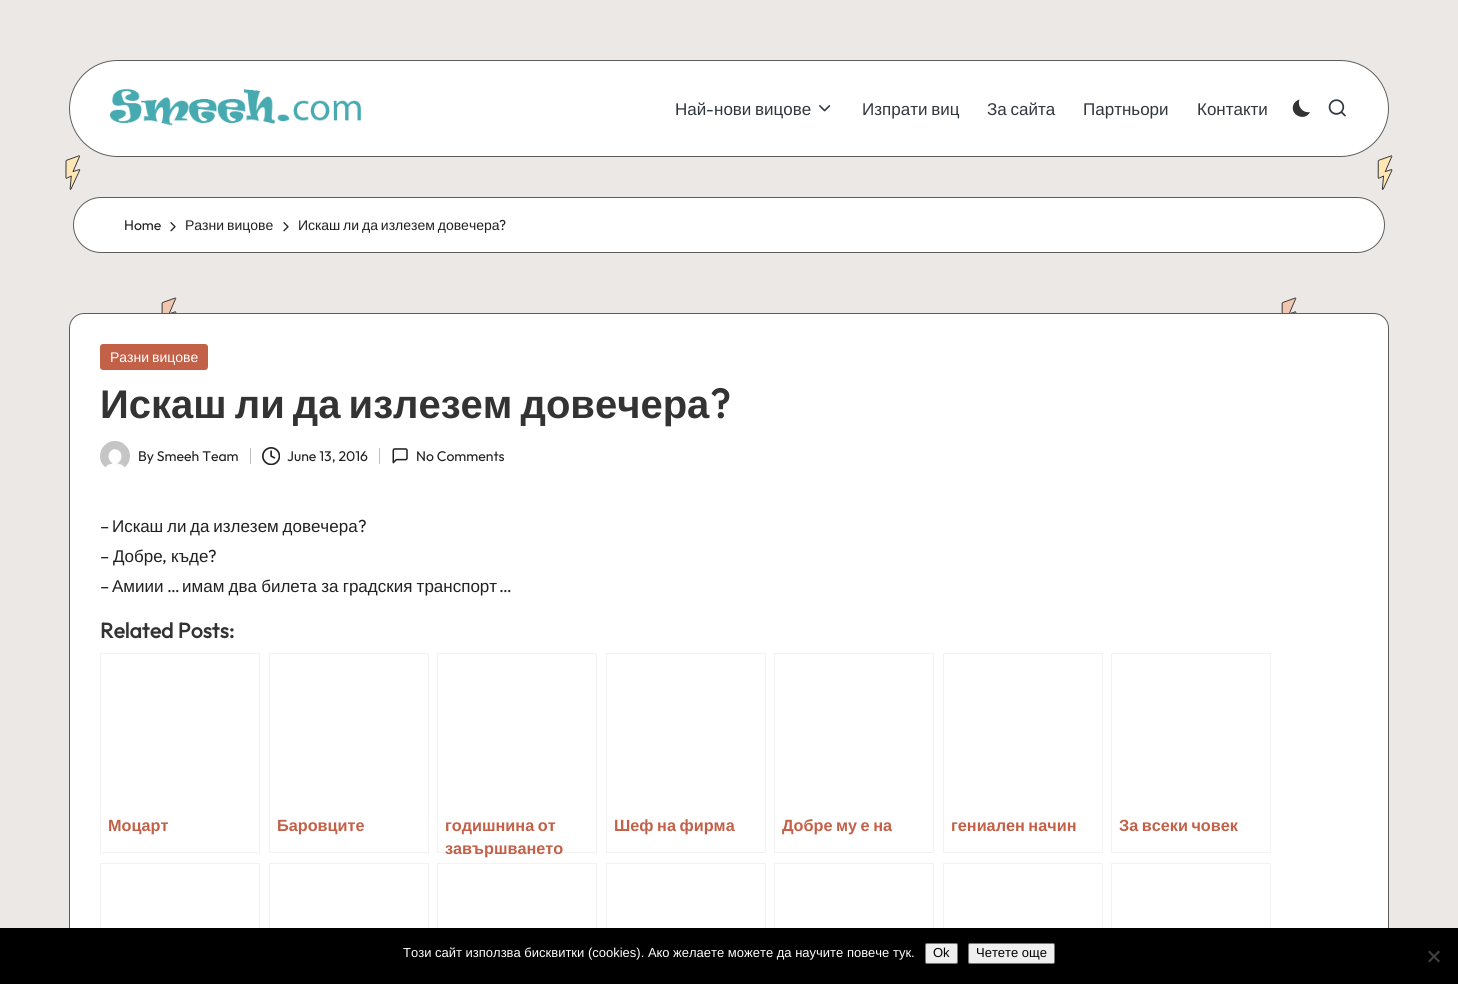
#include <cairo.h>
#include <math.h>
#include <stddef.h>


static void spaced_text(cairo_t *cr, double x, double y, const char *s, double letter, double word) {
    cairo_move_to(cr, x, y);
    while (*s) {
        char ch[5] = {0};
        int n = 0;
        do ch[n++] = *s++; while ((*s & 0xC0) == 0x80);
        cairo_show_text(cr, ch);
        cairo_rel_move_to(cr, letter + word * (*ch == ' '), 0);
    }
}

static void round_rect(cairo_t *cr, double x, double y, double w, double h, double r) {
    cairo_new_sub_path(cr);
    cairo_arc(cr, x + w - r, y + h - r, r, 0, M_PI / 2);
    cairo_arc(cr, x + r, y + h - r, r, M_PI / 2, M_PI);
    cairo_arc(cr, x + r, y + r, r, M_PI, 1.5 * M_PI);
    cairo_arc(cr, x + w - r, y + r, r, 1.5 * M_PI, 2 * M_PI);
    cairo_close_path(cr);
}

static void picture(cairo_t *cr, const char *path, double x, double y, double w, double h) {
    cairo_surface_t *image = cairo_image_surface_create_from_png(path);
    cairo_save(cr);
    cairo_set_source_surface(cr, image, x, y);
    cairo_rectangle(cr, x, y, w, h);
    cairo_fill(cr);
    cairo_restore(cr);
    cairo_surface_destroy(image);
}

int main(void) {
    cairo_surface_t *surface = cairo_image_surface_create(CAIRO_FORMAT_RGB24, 1458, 984);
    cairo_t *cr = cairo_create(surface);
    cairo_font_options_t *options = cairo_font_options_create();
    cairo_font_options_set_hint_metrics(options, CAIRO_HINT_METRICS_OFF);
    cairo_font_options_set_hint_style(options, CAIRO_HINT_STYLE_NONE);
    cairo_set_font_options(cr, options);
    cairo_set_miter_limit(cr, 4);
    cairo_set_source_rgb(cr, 0.922, 0.91, 0.902);
    cairo_paint(cr);
    picture(cr, "img1.png", 65, 155, 1328, 158);
    cairo_set_source_rgb(cr, 1, 1, 1);
    round_rect(cr, 69, 60, 1320, 97, 48.5);
    cairo_fill(cr);
    round_rect(cr, 69.5, 60.5, 1319, 96, 48);
    cairo_set_source_rgba(cr, 0.153, 0.153, 0.153, 0.75);
    cairo_set_line_width(cr, 1);
    cairo_stroke(cr);
    picture(cr, "img2.png", 110, 89, 251, 37);
    cairo_select_font_face(cr, "Liberation Sans", CAIRO_FONT_SLANT_NORMAL, CAIRO_FONT_WEIGHT_NORMAL);
    cairo_set_font_size(cr, 17);
    cairo_set_source_rgb(cr, 0.188, 0.216, 0.243);
    cairo_move_to(cr, 675, 115);
    cairo_show_text(cr, "Най");
    cairo_select_font_face(cr, "Outfit Thin", CAIRO_FONT_SLANT_NORMAL, CAIRO_FONT_WEIGHT_NORMAL);
    cairo_move_to(cr, 706, 115);
    cairo_show_text(cr, "-");
    cairo_select_font_face(cr, "Liberation Sans", CAIRO_FONT_SLANT_NORMAL, CAIRO_FONT_WEIGHT_NORMAL);
    spaced_text(cr, 714, 115, "нови вицове", 0, -1);
    picture(cr, "img3.png", 819, 105, 12, 7);
    spaced_text(cr, 862, 115, "Изпрати виц", 0, -1);
    spaced_text(cr, 987, 115, "За сайта", 0, -1);
    cairo_move_to(cr, 1083, 115);
    cairo_show_text(cr, "Партньори");
    cairo_move_to(cr, 1197, 115);
    cairo_show_text(cr, "Контакти");
    cairo_set_source_rgb(cr, 0.2, 0.2, 0.2);
    cairo_new_path(cr);
    cairo_move_to(cr, 1310, 112);
    cairo_curve_to(cr, 1303, 113.5, 1297, 106.5, 1299.5, 99.5);
    cairo_curve_to(cr, 1297.5, 100, 1295.5, 101.5, 1294, 103.5);
    cairo_curve_to(cr, 1288, 114.5, 1305, 122.5, 1310, 112);
    cairo_close_path(cr);
    cairo_fill(cr);
    picture(cr, "img4.png", 1328, 99, 18, 18);
    cairo_set_source_rgb(cr, 1, 1, 1);
    round_rect(cr, 73, 197, 1312, 56, 28);
    cairo_fill(cr);
    round_rect(cr, 73.5, 197.5, 1311, 55, 27.5);
    cairo_set_source_rgba(cr, 0.153, 0.153, 0.153, 0.75);
    cairo_stroke(cr);
    cairo_select_font_face(cr, "Outfit Thin", CAIRO_FONT_SLANT_NORMAL, CAIRO_FONT_WEIGHT_NORMAL);
    cairo_set_font_size(cr, 14);
    cairo_set_source_rgb(cr, 0.129, 0.129, 0.129);
    cairo_move_to(cr, 124, 230);
    cairo_show_text(cr, "Home");
    picture(cr, "img5.png", 170, 222, 6, 10);
    cairo_select_font_face(cr, "Liberation Sans", CAIRO_FONT_SLANT_NORMAL, CAIRO_FONT_WEIGHT_NORMAL);
    spaced_text(cr, 185, 230, "Разни вицове", 0, -1);
    picture(cr, "img5.png", 283, 222, 6, 10);
    spaced_text(cr, 298, 230, "Искаш ли да излезем довечера", 0, -1);
    cairo_select_font_face(cr, "Outfit Thin", CAIRO_FONT_SLANT_NORMAL, CAIRO_FONT_WEIGHT_NORMAL);
    cairo_move_to(cr, 499, 230);
    cairo_show_text(cr, "?");
    cairo_set_source_rgb(cr, 1, 1, 1);
    round_rect(cr, 69, 313, 1320, 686, 15);
    cairo_fill(cr);
    round_rect(cr, 69.5, 313.5, 1319, 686, 14.5);
    cairo_set_source_rgba(cr, 0.153, 0.153, 0.153, 0.75);
    cairo_stroke(cr);
    cairo_set_source_rgb(cr, 0.761, 0.38, 0.282);
    round_rect(cr, 100, 344, 108, 26, 3);
    cairo_fill(cr);
    cairo_select_font_face(cr, "Liberation Sans", CAIRO_FONT_SLANT_NORMAL, CAIRO_FONT_WEIGHT_NORMAL);
    cairo_set_source_rgb(cr, 1, 1, 1);
    spaced_text(cr, 110, 362, "Разни вицове", 0, -1);
    cairo_select_font_face(cr, "Liberation Sans", CAIRO_FONT_SLANT_NORMAL, CAIRO_FONT_WEIGHT_BOLD);
    cairo_set_font_size(cr, 40);
    cairo_set_source_rgb(cr, 0.2, 0.2, 0.2);
    spaced_text(cr, 100, 418, "Искаш ли да излезем довечера", 0, -3);
    cairo_select_font_face(cr, "Outfit", CAIRO_FONT_SLANT_NORMAL, CAIRO_FONT_WEIGHT_BOLD);
    cairo_move_to(cr, 710, 418);
    cairo_show_text(cr, "?");
    picture(cr, "img6.png", 100, 441, 30, 28);
    cairo_select_font_face(cr, "Outfit Thin", CAIRO_FONT_SLANT_NORMAL, CAIRO_FONT_WEIGHT_NORMAL);
    cairo_set_font_size(cr, 14);
    cairo_set_source_rgb(cr, 0.129, 0.129, 0.129);
    cairo_move_to(cr, 138, 461);
    cairo_show_text(cr, "By Smeeh Team");
    cairo_set_source_rgb(cr, 0.749, 0.749, 0.749);
    cairo_rectangle(cr, 250, 448, 1, 16);
    cairo_fill(cr);
    picture(cr, "img7.png", 262, 447, 18, 18);
    cairo_set_source_rgb(cr, 0.129, 0.129, 0.129);
    cairo_move_to(cr, 287, 461);
    cairo_show_text(cr, "June 13, 2016");
    cairo_set_source_rgb(cr, 0.749, 0.749, 0.749);
    cairo_rectangle(cr, 379, 448, 1, 16);
    cairo_fill(cr);
    picture(cr, "img8.png", 392, 448, 16, 16);
    cairo_set_source_rgb(cr, 0.129, 0.129, 0.129);
    cairo_move_to(cr, 416, 461);
    cairo_show_text(cr, "No Comments");
    cairo_set_font_size(cr, 17);
    cairo_move_to(cr, 100, 532);
    cairo_show_text(cr, "–");
    cairo_select_font_face(cr, "Liberation Sans", CAIRO_FONT_SLANT_NORMAL, CAIRO_FONT_WEIGHT_NORMAL);
    spaced_text(cr, 112, 532, "Искаш ли да излезем довечера", 0, -1);
    cairo_select_font_face(cr, "Outfit Thin", CAIRO_FONT_SLANT_NORMAL, CAIRO_FONT_WEIGHT_NORMAL);
    cairo_move_to(cr, 358, 532);
    cairo_show_text(cr, "?");
    cairo_move_to(cr, 100, 562);
    cairo_show_text(cr, "–");
    cairo_select_font_face(cr, "Liberation Sans", CAIRO_FONT_SLANT_NORMAL, CAIRO_FONT_WEIGHT_NORMAL);
    cairo_move_to(cr, 113, 562);
    cairo_show_text(cr, "Добре");
    cairo_move_to(cr, 171, 562);
    cairo_show_text(cr, "къде");
    cairo_select_font_face(cr, "Outfit Thin", CAIRO_FONT_SLANT_NORMAL, CAIRO_FONT_WEIGHT_NORMAL);
    cairo_move_to(cr, 208, 562);
    cairo_show_text(cr, "?");
    cairo_move_to(cr, 162, 562);
    cairo_show_text(cr, ",");
    cairo_move_to(cr, 100, 592);
    cairo_show_text(cr, "–");
    cairo_select_font_face(cr, "Liberation Sans", CAIRO_FONT_SLANT_NORMAL, CAIRO_FONT_WEIGHT_NORMAL);
    cairo_move_to(cr, 112, 592);
    cairo_show_text(cr, "Амиии");
    spaced_text(cr, 182, 592, "имам два билета за градския транспорт", 0, -0.5);
    cairo_select_font_face(cr, "Outfit Thin", CAIRO_FONT_SLANT_NORMAL, CAIRO_FONT_WEIGHT_NORMAL);
    cairo_move_to(cr, 167, 592);
    cairo_show_text(cr, "…");
    cairo_move_to(cr, 499, 592);
    cairo_show_text(cr, "…");
    cairo_select_font_face(cr, "Outfit", CAIRO_FONT_SLANT_NORMAL, CAIRO_FONT_WEIGHT_BOLD);
    cairo_set_font_size(cr, 21.25);
    cairo_set_source_rgb(cr, 0.2, 0.2, 0.2);
    cairo_move_to(cr, 100, 638);
    cairo_show_text(cr, "Related Posts:");
    cairo_rectangle(cr, 100.5, 653.5, 159, 199);
    cairo_set_source_rgb(cr, 0.949, 0.949, 0.949);
    cairo_stroke(cr);
    cairo_select_font_face(cr, "Liberation Sans", CAIRO_FONT_SLANT_NORMAL, CAIRO_FONT_WEIGHT_BOLD);
    cairo_set_font_size(cr, 16.25);
    cairo_set_source_rgb(cr, 0.761, 0.38, 0.282);
    cairo_move_to(cr, 108, 831);
    cairo_show_text(cr, "Моцарт");
    cairo_rectangle(cr, 269.5, 653.5, 159, 199);
    cairo_set_source_rgb(cr, 0.949, 0.949, 0.949);
    cairo_stroke(cr);
    cairo_set_source_rgb(cr, 0.761, 0.38, 0.282);
    cairo_move_to(cr, 277, 831);
    cairo_show_text(cr, "Баровците");
    cairo_rectangle(cr, 437.5, 653.5, 159, 199);
    cairo_set_source_rgb(cr, 0.949, 0.949, 0.949);
    cairo_stroke(cr);
    cairo_set_source_rgb(cr, 0.761, 0.38, 0.282);
    spaced_text(cr, 445, 831, "годишнина от", 0, -1);
    cairo_move_to(cr, 445, 854);
    cairo_show_text(cr, "завършването");
    cairo_rectangle(cr, 606.5, 653.5, 159, 199);
    cairo_set_source_rgb(cr, 0.949, 0.949, 0.949);
    cairo_stroke(cr);
    cairo_set_source_rgb(cr, 0.761, 0.38, 0.282);
    spaced_text(cr, 614, 831, "Шеф на фирма", 0, -1);
    cairo_rectangle(cr, 774.5, 653.5, 159, 199);
    cairo_set_source_rgb(cr, 0.949, 0.949, 0.949);
    cairo_stroke(cr);
    cairo_set_source_rgb(cr, 0.761, 0.38, 0.282);
    spaced_text(cr, 782, 831, "Добре му е на", 0, -1);
    cairo_rectangle(cr, 943.5, 653.5, 159, 199);
    cairo_set_source_rgb(cr, 0.949, 0.949, 0.949);
    cairo_stroke(cr);
    cairo_set_source_rgb(cr, 0.761, 0.38, 0.282);
    spaced_text(cr, 951, 831, "гениален начин", 0, -1);
    cairo_rectangle(cr, 1111.5, 653.5, 159, 199);
    cairo_set_source_rgb(cr, 0.949, 0.949, 0.949);
    cairo_stroke(cr);
    cairo_set_source_rgb(cr, 0.761, 0.38, 0.282);
    spaced_text(cr, 1119, 831, "За всеки човек", 0, -1);
    cairo_rectangle(cr, 100.5, 863.5, 159, 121);
    cairo_set_source_rgb(cr, 0.949, 0.949, 0.949);
    cairo_stroke(cr);
    cairo_rectangle(cr, 269.5, 863.5, 159, 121);
    cairo_stroke(cr);
    cairo_rectangle(cr, 437.5, 863.5, 159, 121);
    cairo_stroke(cr);
    cairo_rectangle(cr, 606.5, 863.5, 159, 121);
    cairo_stroke(cr);
    cairo_rectangle(cr, 774.5, 863.5, 159, 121);
    cairo_stroke(cr);
    cairo_rectangle(cr, 943.5, 863.5, 159, 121);
    cairo_stroke(cr);
    cairo_rectangle(cr, 1111.5, 863.5, 159, 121);
    cairo_stroke(cr);
    cairo_set_source_rgb(cr, 0, 0, 0);
    cairo_rectangle(cr, 0, 928, 1458, 56);
    cairo_fill(cr);
    cairo_select_font_face(cr, "Liberation Sans", CAIRO_FONT_SLANT_NORMAL, CAIRO_FONT_WEIGHT_NORMAL);
    cairo_set_font_size(cr, 13);
    cairo_set_source_rgb(cr, 1, 1, 1);
    cairo_move_to(cr, 403, 957);
    cairo_show_text(cr, "Този сайт използва бисквитки (cookies). Ако желаете можете да научите повече тук.");
    cairo_set_source_rgb(cr, 0.937, 0.937, 0.937);
    round_rect(cr, 925.5, 943.5, 32, 20, 1.5);
    cairo_fill_preserve(cr);
    cairo_set_source_rgb(cr, 0.463, 0.463, 0.463);
    cairo_stroke(cr);
    cairo_set_source_rgb(cr, 0, 0, 0);
    cairo_move_to(cr, 933, 957);
    cairo_show_text(cr, "Ok");
    cairo_set_source_rgb(cr, 0.937, 0.937, 0.937);
    round_rect(cr, 968.5, 943.5, 86, 20, 1.5);
    cairo_fill_preserve(cr);
    cairo_set_source_rgb(cr, 0.463, 0.463, 0.463);
    cairo_stroke(cr);
    cairo_set_source_rgb(cr, 0, 0, 0);
    cairo_move_to(cr, 976, 957);
    cairo_show_text(cr, "Четете още");
    cairo_set_source_rgb(cr, 0.251, 0.251, 0.251);
    cairo_new_path(cr);
    cairo_move_to(cr, 1438.5, 950.5);
    cairo_line_to(cr, 1440, 952);
    cairo_line_to(cr, 1429.5, 962.5);
    cairo_line_to(cr, 1428, 961);
    cairo_close_path(cr);
    cairo_fill(cr);
    cairo_new_path(cr);
    cairo_move_to(cr, 1428, 952);
    cairo_line_to(cr, 1429.5, 950.5);
    cairo_line_to(cr, 1440, 961);
    cairo_line_to(cr, 1438.5, 962.5);
    cairo_close_path(cr);
    cairo_fill(cr);
    cairo_surface_write_to_png(surface, "page.png");
    cairo_font_options_destroy(options);
    cairo_destroy(cr);
    cairo_surface_destroy(surface);
    return 0;
}
